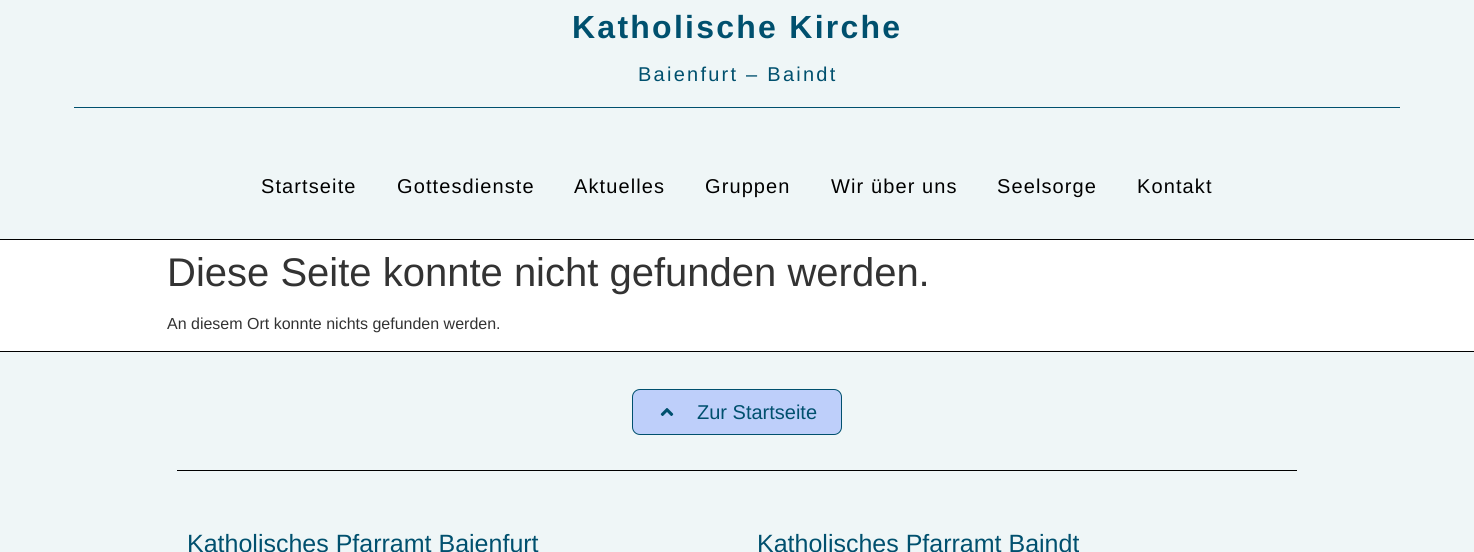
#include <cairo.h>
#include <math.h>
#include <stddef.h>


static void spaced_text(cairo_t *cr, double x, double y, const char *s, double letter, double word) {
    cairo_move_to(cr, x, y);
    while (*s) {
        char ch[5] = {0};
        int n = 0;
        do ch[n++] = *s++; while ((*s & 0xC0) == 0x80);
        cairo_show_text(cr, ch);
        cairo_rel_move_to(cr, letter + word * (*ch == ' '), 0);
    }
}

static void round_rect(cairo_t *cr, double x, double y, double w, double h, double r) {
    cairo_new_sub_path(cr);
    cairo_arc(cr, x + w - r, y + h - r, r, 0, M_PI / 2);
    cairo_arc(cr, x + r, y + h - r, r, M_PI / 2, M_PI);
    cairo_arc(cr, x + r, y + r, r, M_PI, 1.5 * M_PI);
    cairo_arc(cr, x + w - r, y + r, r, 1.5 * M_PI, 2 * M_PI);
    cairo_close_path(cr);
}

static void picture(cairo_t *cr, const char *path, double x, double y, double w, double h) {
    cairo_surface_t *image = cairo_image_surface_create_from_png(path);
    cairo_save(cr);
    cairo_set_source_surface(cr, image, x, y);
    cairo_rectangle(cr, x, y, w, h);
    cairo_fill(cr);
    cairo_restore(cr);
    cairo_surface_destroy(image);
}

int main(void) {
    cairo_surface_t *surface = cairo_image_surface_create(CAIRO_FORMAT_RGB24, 1474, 552);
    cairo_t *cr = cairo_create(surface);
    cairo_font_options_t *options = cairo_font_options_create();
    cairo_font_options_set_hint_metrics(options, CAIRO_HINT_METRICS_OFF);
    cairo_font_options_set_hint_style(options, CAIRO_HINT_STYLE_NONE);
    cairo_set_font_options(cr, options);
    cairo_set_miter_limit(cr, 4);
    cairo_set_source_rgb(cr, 1, 1, 1);
    cairo_paint(cr);
    cairo_set_source_rgb(cr, 0.937, 0.961, 0.965);
    cairo_rectangle(cr, 0, 0, 1474, 239);
    cairo_fill(cr);
    cairo_set_source_rgb(cr, 0, 0, 0);
    cairo_rectangle(cr, 0, 239, 1474, 1);
    cairo_fill(cr);
    cairo_select_font_face(cr, "Liberation Sans", CAIRO_FONT_SLANT_NORMAL, CAIRO_FONT_WEIGHT_BOLD);
    cairo_set_font_size(cr, 32);
    cairo_set_source_rgb(cr, 0, 0.314, 0.431);
    spaced_text(cr, 572, 38, "Katholische Kirche", 2.25, 0);
    cairo_select_font_face(cr, "Liberation Sans", CAIRO_FONT_SLANT_NORMAL, CAIRO_FONT_WEIGHT_NORMAL);
    cairo_set_font_size(cr, 20);
    spaced_text(cr, 638, 81, "Baienfurt – Baindt", 2.25, 0);
    cairo_rectangle(cr, 74, 107, 1326, 1);
    cairo_fill(cr);
    cairo_set_source_rgb(cr, 0, 0, 0);
    spaced_text(cr, 261, 193, "Startseite", 1.1, 0);
    spaced_text(cr, 397, 193, "Gottesdienste", 1.1, 0);
    spaced_text(cr, 574, 193, "Aktuelles", 1.1, 0);
    spaced_text(cr, 705, 193, "Gruppen", 1.1, 0);
    spaced_text(cr, 831, 193, "Wir über uns", 1.1, 0);
    spaced_text(cr, 997, 193, "Seelsorge", 1.1, 0);
    spaced_text(cr, 1137, 193, "Kontakt", 1.1, 0);
    cairo_set_font_size(cr, 40);
    cairo_set_source_rgb(cr, 0.2, 0.2, 0.2);
    cairo_move_to(cr, 167, 286);
    cairo_show_text(cr, "Diese Seite konnte nicht gefunden werden.");
    cairo_set_font_size(cr, 16);
    cairo_move_to(cr, 167, 329);
    cairo_show_text(cr, "An diesem Ort konnte nichts gefunden werden.");
    cairo_set_source_rgb(cr, 0.937, 0.961, 0.965);
    cairo_rectangle(cr, 0, 352, 1474, 200);
    cairo_fill(cr);
    cairo_set_source_rgb(cr, 0, 0, 0);
    cairo_rectangle(cr, 0, 351, 1474, 1);
    cairo_fill(cr);
    cairo_set_source_rgb(cr, 0.745, 0.812, 0.98);
    round_rect(cr, 632.5, 389.5, 209, 45, 7.5);
    cairo_fill_preserve(cr);
    cairo_set_source_rgb(cr, 0, 0.314, 0.431);
    cairo_set_line_width(cr, 1);
    cairo_stroke(cr);
    picture(cr, "img1.png", 660, 408, 14, 8);
    cairo_set_font_size(cr, 20);
    cairo_move_to(cr, 697, 419);
    cairo_show_text(cr, "Zur Startseite");
    cairo_set_source_rgb(cr, 0, 0, 0);
    cairo_rectangle(cr, 177, 470, 1120, 1);
    cairo_fill(cr);
    cairo_set_font_size(cr, 25);
    cairo_set_source_rgb(cr, 0, 0.314, 0.431);
    cairo_move_to(cr, 187, 552);
    cairo_show_text(cr, "Katholisches Pfarramt Baienfurt");
    cairo_move_to(cr, 757, 552);
    cairo_show_text(cr, "Katholisches Pfarramt Baindt");
    cairo_surface_write_to_png(surface, "page.png");
    cairo_font_options_destroy(options);
    cairo_destroy(cr);
    cairo_surface_destroy(surface);
    return 0;
}
